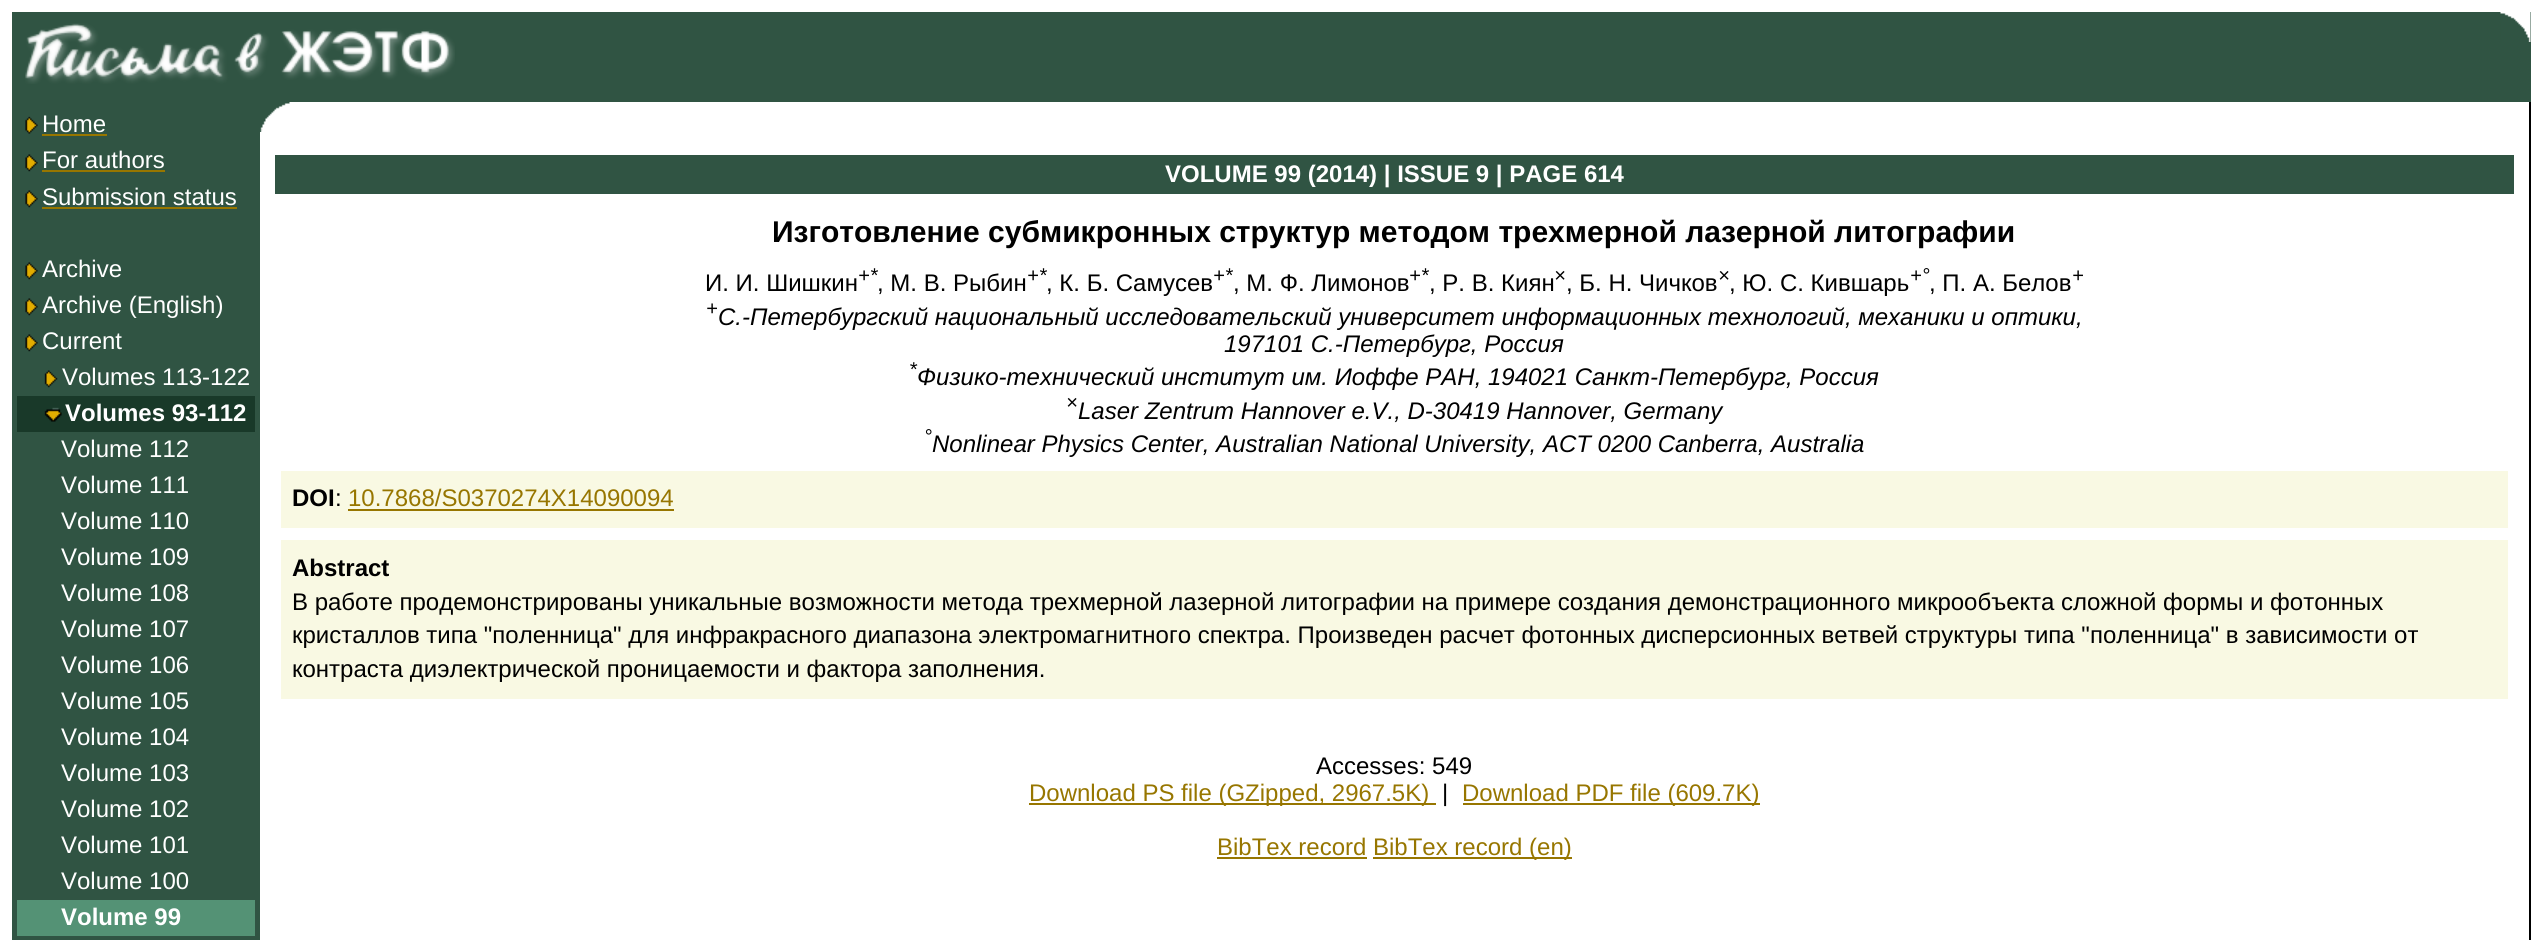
#include <cairo.h>
#include <math.h>
#include <stddef.h>


static void picture(cairo_t *cr, const char *path, double x, double y, double w, double h) {
    cairo_surface_t *image = cairo_image_surface_create_from_png(path);
    cairo_save(cr);
    cairo_set_source_surface(cr, image, x, y);
    cairo_rectangle(cr, x, y, w, h);
    cairo_fill(cr);
    cairo_restore(cr);
    cairo_surface_destroy(image);
}

int main(void) {
    cairo_surface_t *surface = cairo_image_surface_create(CAIRO_FORMAT_RGB24, 2542, 940);
    cairo_t *cr = cairo_create(surface);
    cairo_font_options_t *options = cairo_font_options_create();
    cairo_font_options_set_hint_metrics(options, CAIRO_HINT_METRICS_OFF);
    cairo_font_options_set_hint_style(options, CAIRO_HINT_STYLE_NONE);
    cairo_set_font_options(cr, options);
    cairo_set_miter_limit(cr, 4);
    cairo_set_source_rgb(cr, 1, 1, 1);
    cairo_paint(cr);
    cairo_set_source_rgb(cr, 0.188, 0.329, 0.263);
    cairo_rectangle(cr, 12, 12, 2519, 90);
    cairo_fill(cr);
    picture(cr, "img1.png", 2500, 12, 31, 30);
    picture(cr, "img2.png", 25, 23, 430, 61);
    cairo_rectangle(cr, 12, 102, 248, 838);
    cairo_fill(cr);
    picture(cr, "img3.png", 25, 116, 13, 18);
    cairo_select_font_face(cr, "Liberation Sans", CAIRO_FONT_SLANT_NORMAL, CAIRO_FONT_WEIGHT_NORMAL);
    cairo_set_font_size(cr, 24);
    cairo_set_source_rgb(cr, 1, 1, 1);
    cairo_move_to(cr, 42, 132);
    cairo_show_text(cr, "Home");
    cairo_set_source_rgb(cr, 0.592, 0.463, 0);
    cairo_rectangle(cr, 42, 134, 65, 2);
    cairo_fill(cr);
    picture(cr, "img4.png", 25, 154, 13, 18);
    cairo_set_source_rgb(cr, 1, 1, 1);
    cairo_move_to(cr, 42, 168);
    cairo_show_text(cr, "For authors");
    cairo_set_source_rgb(cr, 0.592, 0.463, 0);
    cairo_rectangle(cr, 42, 170, 123, 2);
    cairo_fill(cr);
    picture(cr, "img4.png", 25, 190, 13, 18);
    cairo_set_source_rgb(cr, 1, 1, 1);
    cairo_move_to(cr, 42, 205);
    cairo_show_text(cr, "Submission status");
    cairo_set_source_rgb(cr, 0.592, 0.463, 0);
    cairo_rectangle(cr, 42, 207, 195, 2);
    cairo_fill(cr);
    picture(cr, "img4.png", 25, 262, 13, 18);
    cairo_set_source_rgb(cr, 1, 1, 1);
    cairo_move_to(cr, 42, 277);
    cairo_show_text(cr, "Archive");
    picture(cr, "img4.png", 25, 298, 13, 18);
    cairo_move_to(cr, 42, 313);
    cairo_show_text(cr, "Archive (English)");
    picture(cr, "img4.png", 25, 334, 13, 18);
    cairo_move_to(cr, 42, 349);
    cairo_show_text(cr, "Current");
    picture(cr, "img5.png", 44, 370, 14, 18);
    cairo_move_to(cr, 62, 385);
    cairo_show_text(cr, "Volumes 113-122");
    cairo_set_source_rgb(cr, 0.098, 0.224, 0.161);
    cairo_rectangle(cr, 17, 396, 238, 36);
    cairo_fill(cr);
    picture(cr, "img6.png", 44, 407, 18, 15);
    cairo_select_font_face(cr, "Liberation Sans", CAIRO_FONT_SLANT_NORMAL, CAIRO_FONT_WEIGHT_BOLD);
    cairo_set_source_rgb(cr, 1, 1, 1);
    cairo_move_to(cr, 65, 421);
    cairo_show_text(cr, "Volumes 93-112");
    cairo_select_font_face(cr, "Liberation Sans", CAIRO_FONT_SLANT_NORMAL, CAIRO_FONT_WEIGHT_NORMAL);
    cairo_move_to(cr, 61, 457);
    cairo_show_text(cr, "Volume 112");
    cairo_move_to(cr, 61, 493);
    cairo_show_text(cr, "Volume 111");
    cairo_move_to(cr, 61, 529);
    cairo_show_text(cr, "Volume 110");
    cairo_move_to(cr, 61, 565);
    cairo_show_text(cr, "Volume 109");
    cairo_move_to(cr, 61, 601);
    cairo_show_text(cr, "Volume 108");
    cairo_move_to(cr, 61, 637);
    cairo_show_text(cr, "Volume 107");
    cairo_move_to(cr, 61, 673);
    cairo_show_text(cr, "Volume 106");
    cairo_move_to(cr, 61, 709);
    cairo_show_text(cr, "Volume 105");
    cairo_move_to(cr, 61, 745);
    cairo_show_text(cr, "Volume 104");
    cairo_move_to(cr, 61, 781);
    cairo_show_text(cr, "Volume 103");
    cairo_move_to(cr, 61, 817);
    cairo_show_text(cr, "Volume 102");
    cairo_move_to(cr, 61, 853);
    cairo_show_text(cr, "Volume 101");
    cairo_move_to(cr, 61, 889);
    cairo_show_text(cr, "Volume 100");
    cairo_set_source_rgb(cr, 0.329, 0.573, 0.459);
    cairo_rectangle(cr, 17, 900, 238, 36);
    cairo_fill(cr);
    cairo_select_font_face(cr, "Liberation Sans", CAIRO_FONT_SLANT_NORMAL, CAIRO_FONT_WEIGHT_BOLD);
    cairo_set_source_rgb(cr, 1, 1, 1);
    cairo_move_to(cr, 61, 925);
    cairo_show_text(cr, "Volume 99");
    picture(cr, "img7.png", 260, 102, 30, 30);
    cairo_set_source_rgb(cr, 0, 0, 0);
    cairo_rectangle(cr, 2529, 102, 2, 838);
    cairo_fill(cr);
    cairo_set_source_rgb(cr, 0.188, 0.329, 0.263);
    cairo_rectangle(cr, 275, 155, 2239, 39);
    cairo_fill(cr);
    cairo_set_source_rgb(cr, 1, 1, 1);
    cairo_move_to(cr, 1165, 182);
    cairo_show_text(cr, "VOLUME 99 (2014) | ISSUE 9 | PAGE 614");
    cairo_set_font_size(cr, 30);
    cairo_set_source_rgb(cr, 0, 0, 0);
    cairo_move_to(cr, 772, 242);
    cairo_show_text(cr, "Изготовление субмикронных структур методом трехмерной лазерной литографии");
    cairo_select_font_face(cr, "Liberation Sans", CAIRO_FONT_SLANT_NORMAL, CAIRO_FONT_WEIGHT_NORMAL);
    cairo_set_font_size(cr, 24);
    cairo_move_to(cr, 705, 291);
    cairo_show_text(cr, "И. И. Шишкин");
    cairo_select_font_face(cr, "Liberation Sans", CAIRO_FONT_SLANT_ITALIC, CAIRO_FONT_WEIGHT_NORMAL);
    cairo_set_font_size(cr, 20);
    cairo_move_to(cr, 858, 282);
    cairo_show_text(cr, "+*");
    cairo_select_font_face(cr, "Liberation Sans", CAIRO_FONT_SLANT_NORMAL, CAIRO_FONT_WEIGHT_NORMAL);
    cairo_set_font_size(cr, 24);
    cairo_move_to(cr, 877, 291);
    cairo_show_text(cr, ", М. В. Рыбин");
    cairo_select_font_face(cr, "Liberation Sans", CAIRO_FONT_SLANT_ITALIC, CAIRO_FONT_WEIGHT_NORMAL);
    cairo_set_font_size(cr, 20);
    cairo_move_to(cr, 1027, 282);
    cairo_show_text(cr, "+*");
    cairo_select_font_face(cr, "Liberation Sans", CAIRO_FONT_SLANT_NORMAL, CAIRO_FONT_WEIGHT_NORMAL);
    cairo_set_font_size(cr, 24);
    cairo_move_to(cr, 1046, 291);
    cairo_show_text(cr, ", К. Б. Самусев");
    cairo_select_font_face(cr, "Liberation Sans", CAIRO_FONT_SLANT_ITALIC, CAIRO_FONT_WEIGHT_NORMAL);
    cairo_set_font_size(cr, 20);
    cairo_move_to(cr, 1213, 282);
    cairo_show_text(cr, "+*");
    cairo_select_font_face(cr, "Liberation Sans", CAIRO_FONT_SLANT_NORMAL, CAIRO_FONT_WEIGHT_NORMAL);
    cairo_set_font_size(cr, 24);
    cairo_move_to(cr, 1233, 291);
    cairo_show_text(cr, ", М. Ф. Лимонов");
    cairo_select_font_face(cr, "Liberation Sans", CAIRO_FONT_SLANT_ITALIC, CAIRO_FONT_WEIGHT_NORMAL);
    cairo_set_font_size(cr, 20);
    cairo_move_to(cr, 1409, 282);
    cairo_show_text(cr, "+*");
    cairo_select_font_face(cr, "Liberation Sans", CAIRO_FONT_SLANT_NORMAL, CAIRO_FONT_WEIGHT_NORMAL);
    cairo_set_font_size(cr, 24);
    cairo_move_to(cr, 1429, 291);
    cairo_show_text(cr, ", Р. В. Киян");
    cairo_select_font_face(cr, "Liberation Sans", CAIRO_FONT_SLANT_ITALIC, CAIRO_FONT_WEIGHT_NORMAL);
    cairo_set_font_size(cr, 20);
    cairo_move_to(cr, 1554, 282);
    cairo_show_text(cr, "×");
    cairo_select_font_face(cr, "Liberation Sans", CAIRO_FONT_SLANT_NORMAL, CAIRO_FONT_WEIGHT_NORMAL);
    cairo_set_font_size(cr, 24);
    cairo_move_to(cr, 1566, 291);
    cairo_show_text(cr, ", Б. Н. Чичков");
    cairo_select_font_face(cr, "Liberation Sans", CAIRO_FONT_SLANT_ITALIC, CAIRO_FONT_WEIGHT_NORMAL);
    cairo_set_font_size(cr, 20);
    cairo_move_to(cr, 1718, 282);
    cairo_show_text(cr, "×");
    cairo_select_font_face(cr, "Liberation Sans", CAIRO_FONT_SLANT_NORMAL, CAIRO_FONT_WEIGHT_NORMAL);
    cairo_set_font_size(cr, 24);
    cairo_move_to(cr, 1729, 291);
    cairo_show_text(cr, ", Ю. С. Кившарь");
    cairo_select_font_face(cr, "Liberation Sans", CAIRO_FONT_SLANT_ITALIC, CAIRO_FONT_WEIGHT_NORMAL);
    cairo_set_font_size(cr, 20);
    cairo_move_to(cr, 1910, 282);
    cairo_show_text(cr, "+°");
    cairo_select_font_face(cr, "Liberation Sans", CAIRO_FONT_SLANT_NORMAL, CAIRO_FONT_WEIGHT_NORMAL);
    cairo_set_font_size(cr, 24);
    cairo_move_to(cr, 1929, 291);
    cairo_show_text(cr, ", П. А. Белов");
    cairo_select_font_face(cr, "Liberation Sans", CAIRO_FONT_SLANT_ITALIC, CAIRO_FONT_WEIGHT_NORMAL);
    cairo_set_font_size(cr, 20);
    cairo_move_to(cr, 2072, 282);
    cairo_show_text(cr, "+");
    cairo_move_to(cr, 706, 315);
    cairo_show_text(cr, "+");
    cairo_set_font_size(cr, 24);
    cairo_move_to(cr, 718, 325);
    cairo_show_text(cr, "С.-Петербургский национальный исследовательский университет информационных технологий, механики и оптики,");
    cairo_move_to(cr, 1224, 352);
    cairo_show_text(cr, "197101 С.-Петербург, Россия");
    cairo_set_font_size(cr, 20);
    cairo_move_to(cr, 909, 376);
    cairo_show_text(cr, "*");
    cairo_set_font_size(cr, 24);
    cairo_move_to(cr, 917, 385);
    cairo_show_text(cr, "Физико-технический институт им. Иоффе РАН, 194021 Санкт-Петербург, Россия");
    cairo_set_font_size(cr, 20);
    cairo_move_to(cr, 1066, 409);
    cairo_show_text(cr, "×");
    cairo_set_font_size(cr, 24);
    cairo_move_to(cr, 1078, 419);
    cairo_show_text(cr, "Laser Zentrum Hannover e.V., D-30419 Hannover, Germany");
    cairo_set_font_size(cr, 20);
    cairo_move_to(cr, 924, 443);
    cairo_show_text(cr, "°");
    cairo_set_font_size(cr, 24);
    cairo_move_to(cr, 932, 452);
    cairo_show_text(cr, "Nonlinear Physics Center, Australian National University, ACT 0200 Canberra, Australia");
    cairo_set_source_rgb(cr, 0.973, 0.973, 0.89);
    cairo_rectangle(cr, 281, 471, 2227, 57);
    cairo_fill(cr);
    cairo_select_font_face(cr, "Liberation Sans", CAIRO_FONT_SLANT_NORMAL, CAIRO_FONT_WEIGHT_BOLD);
    cairo_set_source_rgb(cr, 0, 0, 0);
    cairo_move_to(cr, 292, 506);
    cairo_show_text(cr, "DOI");
    cairo_select_font_face(cr, "Liberation Sans", CAIRO_FONT_SLANT_NORMAL, CAIRO_FONT_WEIGHT_NORMAL);
    cairo_move_to(cr, 335, 506);
    cairo_show_text(cr, ":");
    cairo_set_source_rgb(cr, 0.592, 0.463, 0);
    cairo_move_to(cr, 348, 506);
    cairo_show_text(cr, "10.7868/S0370274X14090094");
    cairo_rectangle(cr, 348, 509, 326, 2);
    cairo_fill(cr);
    cairo_set_source_rgb(cr, 0.973, 0.973, 0.89);
    cairo_rectangle(cr, 281, 540, 2227, 159);
    cairo_fill(cr);
    cairo_select_font_face(cr, "Liberation Sans", CAIRO_FONT_SLANT_NORMAL, CAIRO_FONT_WEIGHT_BOLD);
    cairo_set_source_rgb(cr, 0, 0, 0);
    cairo_move_to(cr, 292, 576);
    cairo_show_text(cr, "Abstract");
    cairo_select_font_face(cr, "Liberation Sans", CAIRO_FONT_SLANT_NORMAL, CAIRO_FONT_WEIGHT_NORMAL);
    cairo_move_to(cr, 292, 610);
    cairo_show_text(cr, "В работе продемонстрированы уникальные возможности метода трехмерной лазерной литографии на примере создания демонстрационного микрообъекта сложной формы и фотонных");
    cairo_move_to(cr, 292, 643);
    cairo_show_text(cr, "кристаллов типа \"поленница\" для инфракрасного диапазона электромагнитного спектра. Произведен расчет фотонных дисперсионных ветвей структуры типа \"поленница\" в зависимости от");
    cairo_move_to(cr, 292, 677);
    cairo_show_text(cr, "контраста диэлектрической проницаемости и фактора заполнения.");
    cairo_move_to(cr, 1316, 774);
    cairo_show_text(cr, "Accesses: 549");
    cairo_set_source_rgb(cr, 0.592, 0.463, 0);
    cairo_rectangle(cr, 1029, 803, 407, 2);
    cairo_fill(cr);
    cairo_move_to(cr, 1029, 801);
    cairo_show_text(cr, "Download PS file (GZipped, 2967.5K)");
    cairo_set_source_rgb(cr, 0, 0, 0);
    cairo_move_to(cr, 1442, 801);
    cairo_show_text(cr, "|");
    cairo_set_source_rgb(cr, 0.592, 0.463, 0);
    cairo_rectangle(cr, 1463, 803, 297, 2);
    cairo_fill(cr);
    cairo_move_to(cr, 1462, 801);
    cairo_show_text(cr, "Download PDF file (609.7K)");
    cairo_move_to(cr, 1217, 855);
    cairo_show_text(cr, "BibTex record");
    cairo_rectangle(cr, 1217, 857, 150, 2);
    cairo_fill(cr);
    cairo_rectangle(cr, 1373, 857, 199, 2);
    cairo_fill(cr);
    cairo_move_to(cr, 1373, 855);
    cairo_show_text(cr, "BibTex record (en)");
    cairo_surface_write_to_png(surface, "page.png");
    cairo_font_options_destroy(options);
    cairo_destroy(cr);
    cairo_surface_destroy(surface);
    return 0;
}
